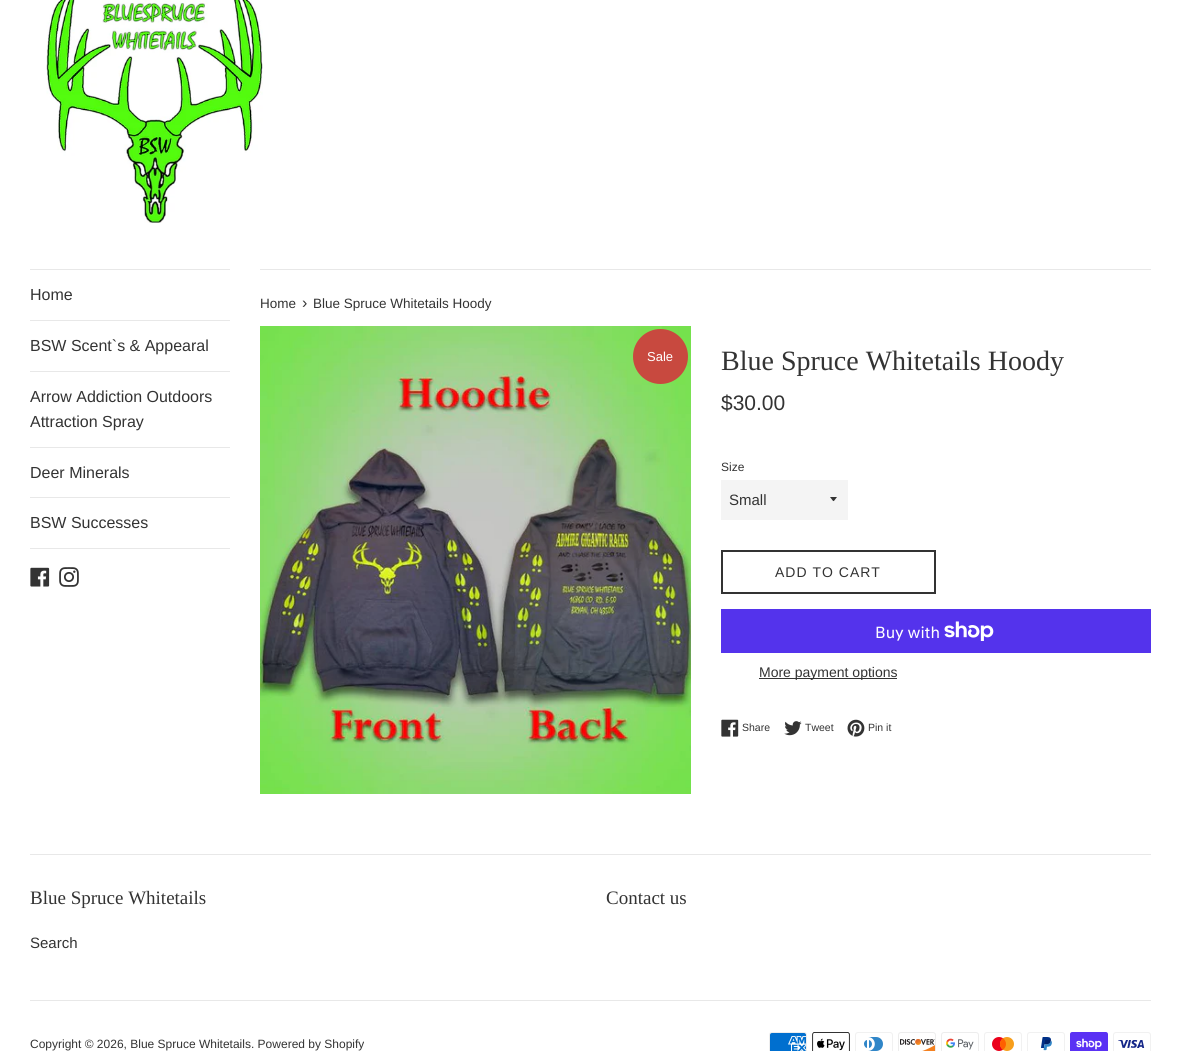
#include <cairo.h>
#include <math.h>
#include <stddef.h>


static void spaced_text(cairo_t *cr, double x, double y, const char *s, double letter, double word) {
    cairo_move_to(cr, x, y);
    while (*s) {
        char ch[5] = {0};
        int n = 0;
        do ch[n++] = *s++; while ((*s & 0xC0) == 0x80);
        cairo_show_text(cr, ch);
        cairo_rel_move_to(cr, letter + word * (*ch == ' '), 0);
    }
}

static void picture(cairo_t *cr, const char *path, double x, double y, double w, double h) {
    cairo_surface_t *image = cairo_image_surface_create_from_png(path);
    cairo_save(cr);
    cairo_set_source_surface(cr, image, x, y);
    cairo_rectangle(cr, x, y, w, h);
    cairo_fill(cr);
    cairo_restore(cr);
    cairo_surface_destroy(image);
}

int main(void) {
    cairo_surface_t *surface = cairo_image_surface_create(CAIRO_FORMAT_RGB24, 1181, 1051);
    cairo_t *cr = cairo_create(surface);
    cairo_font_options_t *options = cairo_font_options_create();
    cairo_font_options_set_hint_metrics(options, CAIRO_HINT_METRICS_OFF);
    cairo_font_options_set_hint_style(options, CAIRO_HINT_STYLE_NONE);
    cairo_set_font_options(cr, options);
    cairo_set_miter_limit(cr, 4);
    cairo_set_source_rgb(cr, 1, 1, 1);
    cairo_paint(cr);
    picture(cr, "img1.png", 46, 0, 217, 223);
    cairo_set_source_rgb(cr, 0.91, 0.91, 0.91);
    cairo_rectangle(cr, 30, 269, 200, 1);
    cairo_fill(cr);
    cairo_rectangle(cr, 30, 320, 200, 1);
    cairo_fill(cr);
    cairo_select_font_face(cr, "Liberation Sans", CAIRO_FONT_SLANT_NORMAL, CAIRO_FONT_WEIGHT_NORMAL);
    cairo_set_font_size(cr, 16);
    cairo_set_source_rgb(cr, 0.2, 0.2, 0.2);
    cairo_move_to(cr, 30, 300);
    cairo_show_text(cr, "Home");
    cairo_set_source_rgb(cr, 0.91, 0.91, 0.91);
    cairo_rectangle(cr, 30, 371, 200, 1);
    cairo_fill(cr);
    cairo_set_source_rgb(cr, 0.2, 0.2, 0.2);
    cairo_move_to(cr, 30, 351);
    cairo_show_text(cr, "BSW Scent`s & Appearal");
    cairo_set_source_rgb(cr, 0.91, 0.91, 0.91);
    cairo_rectangle(cr, 30, 447, 200, 1);
    cairo_fill(cr);
    cairo_set_source_rgb(cr, 0.2, 0.2, 0.2);
    cairo_move_to(cr, 30, 402);
    cairo_show_text(cr, "Arrow Addiction Outdoors");
    cairo_move_to(cr, 30, 427);
    cairo_show_text(cr, "Attraction Spray");
    cairo_set_source_rgb(cr, 0.91, 0.91, 0.91);
    cairo_rectangle(cr, 30, 497, 200, 1);
    cairo_fill(cr);
    cairo_set_source_rgb(cr, 0.2, 0.2, 0.2);
    cairo_move_to(cr, 30, 478);
    cairo_show_text(cr, "Deer Minerals");
    cairo_set_source_rgb(cr, 0.91, 0.91, 0.91);
    cairo_rectangle(cr, 30, 548, 200, 1);
    cairo_fill(cr);
    cairo_set_source_rgb(cr, 0.2, 0.2, 0.2);
    cairo_move_to(cr, 30, 528);
    cairo_show_text(cr, "BSW Successes");
    picture(cr, "img2.png", 30, 567, 20, 20);
    picture(cr, "img3.png", 59, 567, 20, 20);
    cairo_set_source_rgb(cr, 0.91, 0.91, 0.91);
    cairo_rectangle(cr, 260, 269, 891, 1);
    cairo_fill(cr);
    cairo_set_font_size(cr, 13.5);
    cairo_set_source_rgb(cr, 0.2, 0.2, 0.2);
    cairo_move_to(cr, 260, 308);
    cairo_show_text(cr, "Home");
    cairo_set_font_size(cr, 16);
    cairo_move_to(cr, 302, 308);
    cairo_show_text(cr, "›");
    cairo_set_font_size(cr, 13.5);
    cairo_move_to(cr, 313, 308);
    cairo_show_text(cr, "Blue Spruce Whitetails Hoody");
    picture(cr, "img4.png", 260, 326, 431, 468);
    cairo_set_source_rgb(cr, 0.784, 0.286, 0.247);
    cairo_arc(cr, 660.5, 356.5, 27.5, 0, 2 * M_PI);
    cairo_fill(cr);
    cairo_set_font_size(cr, 13);
    cairo_set_source_rgb(cr, 1, 1, 1);
    cairo_move_to(cr, 647, 361);
    cairo_show_text(cr, "Sale");
    cairo_select_font_face(cr, "Liberation Serif", CAIRO_FONT_SLANT_NORMAL, CAIRO_FONT_WEIGHT_NORMAL);
    cairo_set_font_size(cr, 28);
    cairo_set_source_rgb(cr, 0.2, 0.2, 0.2);
    cairo_move_to(cr, 721, 370);
    cairo_show_text(cr, "Blue Spruce Whitetails Hoody");
    cairo_select_font_face(cr, "Liberation Sans", CAIRO_FONT_SLANT_NORMAL, CAIRO_FONT_WEIGHT_NORMAL);
    cairo_set_font_size(cr, 21);
    cairo_move_to(cr, 721, 410);
    cairo_show_text(cr, "$30.00");
    cairo_set_font_size(cr, 12);
    cairo_move_to(cr, 721, 471);
    cairo_show_text(cr, "Size");
    cairo_set_source_rgb(cr, 0.957, 0.957, 0.957);
    cairo_rectangle(cr, 721, 480, 127, 40);
    cairo_fill(cr);
    cairo_set_source_rgb(cr, 0.2, 0.2, 0.2);
    cairo_new_path(cr);
    cairo_move_to(cr, 830, 497);
    cairo_curve_to(cr, 834.5, 502.5, 832.5, 502.5, 837, 497);
    cairo_close_path(cr);
    cairo_fill(cr);
    cairo_set_font_size(cr, 15);
    cairo_move_to(cr, 729, 505);
    cairo_show_text(cr, "Small");
    cairo_rectangle(cr, 722, 551, 213, 42);
    cairo_stroke(cr);
    cairo_set_font_size(cr, 14);
    spaced_text(cr, 775, 577, "ADD TO CART", 1, 0);
    cairo_set_source_rgb(cr, 0.329, 0.2, 0.922);
    cairo_rectangle(cr, 721, 609, 430, 44);
    cairo_fill(cr);
    cairo_select_font_face(cr, "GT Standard", CAIRO_FONT_SLANT_NORMAL, CAIRO_FONT_WEIGHT_NORMAL);
    cairo_set_font_size(cr, 16);
    cairo_set_source_rgb(cr, 1, 1, 1);
    cairo_move_to(cr, 875, 638);
    cairo_show_text(cr, "Buy with");
    picture(cr, "img5.png", 944, 621, 50, 20);
    cairo_set_source_rgb(cr, 0.2, 0.2, 0.2);
    cairo_rectangle(cr, 759, 678, 138, 1);
    cairo_fill(cr);
    cairo_select_font_face(cr, "Liberation Sans", CAIRO_FONT_SLANT_NORMAL, CAIRO_FONT_WEIGHT_NORMAL);
    cairo_set_font_size(cr, 14);
    cairo_move_to(cr, 759, 677);
    cairo_show_text(cr, "More payment options");
    picture(cr, "img6.png", 721, 719, 18, 18);
    cairo_set_font_size(cr, 10.5);
    cairo_move_to(cr, 742, 731);
    cairo_show_text(cr, "Share");
    picture(cr, "img7.png", 784, 721, 18, 15);
    cairo_move_to(cr, 805, 731);
    cairo_show_text(cr, "Tweet");
    picture(cr, "img8.png", 847, 719, 18, 18);
    cairo_move_to(cr, 868, 731);
    cairo_show_text(cr, "Pin it");
    cairo_set_source_rgb(cr, 0.91, 0.91, 0.91);
    cairo_rectangle(cr, 30, 854, 1121, 1);
    cairo_fill(cr);
    cairo_select_font_face(cr, "Liberation Serif", CAIRO_FONT_SLANT_NORMAL, CAIRO_FONT_WEIGHT_NORMAL);
    cairo_set_font_size(cr, 19);
    cairo_set_source_rgb(cr, 0.2, 0.2, 0.2);
    cairo_move_to(cr, 30, 904);
    cairo_show_text(cr, "Blue Spruce Whitetails");
    cairo_select_font_face(cr, "Liberation Sans", CAIRO_FONT_SLANT_NORMAL, CAIRO_FONT_WEIGHT_NORMAL);
    cairo_set_font_size(cr, 15);
    cairo_move_to(cr, 30, 948);
    cairo_show_text(cr, "Search");
    cairo_select_font_face(cr, "Liberation Serif", CAIRO_FONT_SLANT_NORMAL, CAIRO_FONT_WEIGHT_NORMAL);
    cairo_set_font_size(cr, 19);
    cairo_move_to(cr, 606, 904);
    cairo_show_text(cr, "Contact us");
    cairo_set_source_rgb(cr, 0.91, 0.91, 0.91);
    cairo_rectangle(cr, 30, 1000, 1121, 1);
    cairo_fill(cr);
    cairo_select_font_face(cr, "Liberation Sans", CAIRO_FONT_SLANT_NORMAL, CAIRO_FONT_WEIGHT_NORMAL);
    cairo_set_font_size(cr, 12);
    cairo_set_source_rgb(cr, 0.2, 0.2, 0.2);
    cairo_move_to(cr, 30, 1048);
    cairo_show_text(cr, "Copyright © 2026, Blue Spruce Whitetails. Powered by Shopify");
    picture(cr, "img9.png", 769, 1032, 38, 19);
    picture(cr, "img10.png", 812, 1032, 38, 19);
    picture(cr, "img11.png", 855, 1032, 38, 19);
    picture(cr, "img12.png", 898, 1032, 38, 19);
    picture(cr, "img13.png", 941, 1032, 38, 19);
    picture(cr, "img14.png", 984, 1032, 38, 19);
    picture(cr, "img15.png", 1027, 1032, 38, 19);
    picture(cr, "img16.png", 1070, 1032, 38, 19);
    picture(cr, "img17.png", 1113, 1032, 38, 19);
    cairo_surface_write_to_png(surface, "page.png");
    cairo_font_options_destroy(options);
    cairo_destroy(cr);
    cairo_surface_destroy(surface);
    return 0;
}
